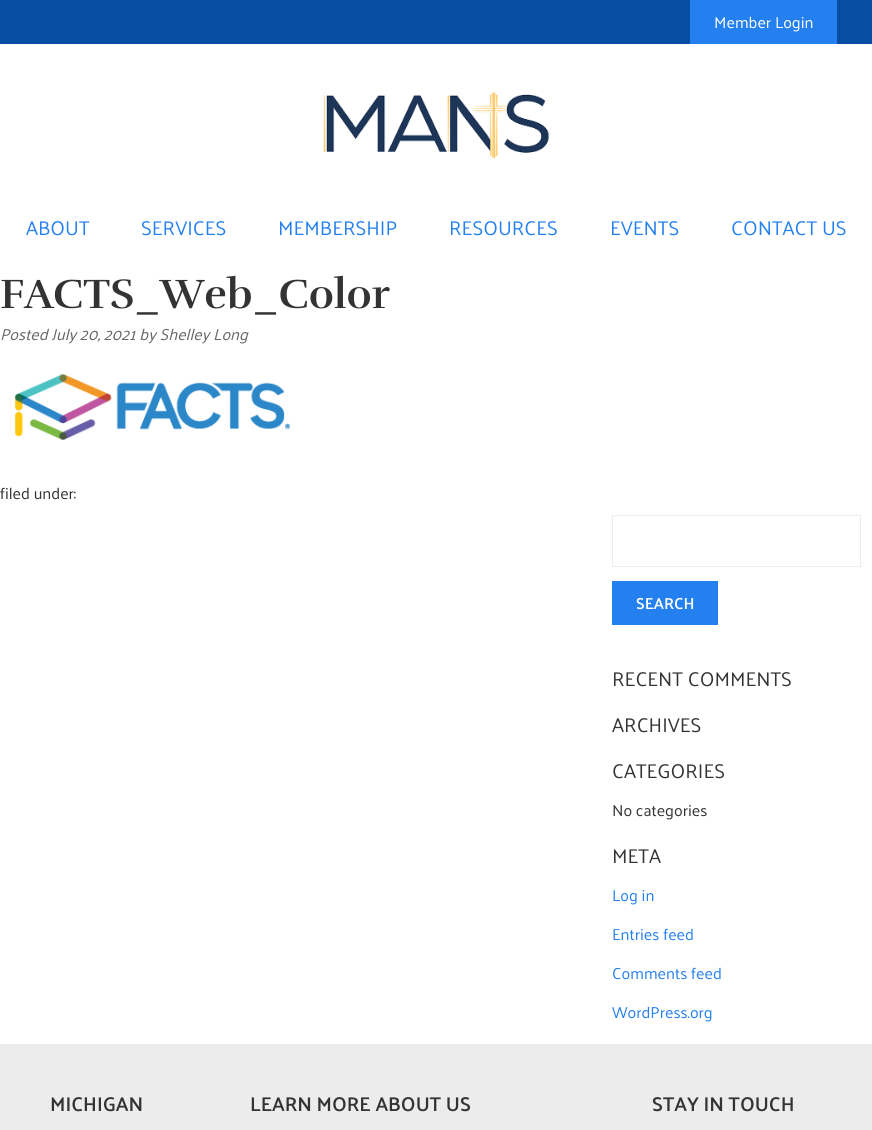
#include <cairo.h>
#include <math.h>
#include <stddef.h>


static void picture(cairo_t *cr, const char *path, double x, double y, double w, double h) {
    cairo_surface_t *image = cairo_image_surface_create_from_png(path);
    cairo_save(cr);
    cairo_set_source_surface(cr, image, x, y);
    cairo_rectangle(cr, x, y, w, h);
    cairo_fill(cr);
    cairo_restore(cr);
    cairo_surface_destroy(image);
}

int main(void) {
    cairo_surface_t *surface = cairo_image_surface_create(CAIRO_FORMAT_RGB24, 872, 1130);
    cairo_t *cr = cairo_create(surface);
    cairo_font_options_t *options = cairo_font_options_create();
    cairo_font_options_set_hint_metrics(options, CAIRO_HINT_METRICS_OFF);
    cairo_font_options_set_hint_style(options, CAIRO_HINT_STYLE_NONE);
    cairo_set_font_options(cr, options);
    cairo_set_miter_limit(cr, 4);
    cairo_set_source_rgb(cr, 1, 1, 1);
    cairo_paint(cr);
    cairo_set_source_rgb(cr, 0.031, 0.306, 0.639);
    cairo_rectangle(cr, 0, 0, 872, 44);
    cairo_fill(cr);
    cairo_set_source_rgb(cr, 0.141, 0.502, 0.937);
    cairo_rectangle(cr, 690, 0, 147, 44);
    cairo_fill(cr);
    cairo_select_font_face(cr, "Palanquin", CAIRO_FONT_SLANT_NORMAL, CAIRO_FONT_WEIGHT_NORMAL);
    cairo_set_font_size(cr, 16);
    cairo_set_source_rgb(cr, 1, 1, 1);
    cairo_move_to(cr, 714, 28);
    cairo_show_text(cr, "Member Login");
    picture(cr, "img1.png", 323, 92, 227, 66);
    cairo_set_font_size(cr, 20);
    cairo_set_source_rgb(cr, 0.141, 0.502, 0.937);
    cairo_move_to(cr, 26, 235);
    cairo_show_text(cr, "ABOUT");
    cairo_move_to(cr, 141, 235);
    cairo_show_text(cr, "SERVICES");
    cairo_move_to(cr, 278, 235);
    cairo_show_text(cr, "MEMBERSHIP");
    cairo_move_to(cr, 449, 235);
    cairo_show_text(cr, "RESOURCES");
    cairo_move_to(cr, 610, 235);
    cairo_show_text(cr, "EVENTS");
    cairo_move_to(cr, 731, 235);
    cairo_show_text(cr, "CONTACT US");
    cairo_select_font_face(cr, "Rufina", CAIRO_FONT_SLANT_NORMAL, CAIRO_FONT_WEIGHT_BOLD);
    cairo_set_font_size(cr, 42);
    cairo_set_source_rgb(cr, 0.2, 0.2, 0.2);
    cairo_move_to(cr, 0, 308);
    cairo_show_text(cr, "FACTS_Web_Color");
    cairo_select_font_face(cr, "Palanquin", CAIRO_FONT_SLANT_ITALIC, CAIRO_FONT_WEIGHT_NORMAL);
    cairo_set_font_size(cr, 16);
    cairo_set_source_rgb(cr, 0.4, 0.4, 0.4);
    cairo_move_to(cr, 0, 340);
    cairo_show_text(cr, "Posted July 20, 2021 by Shelley Long");
    picture(cr, "img2.png", 14, 374, 277, 66);
    cairo_select_font_face(cr, "Palanquin", CAIRO_FONT_SLANT_NORMAL, CAIRO_FONT_WEIGHT_NORMAL);
    cairo_set_source_rgb(cr, 0.2, 0.2, 0.2);
    cairo_move_to(cr, 0, 499);
    cairo_show_text(cr, "filed under:");
    cairo_rectangle(cr, 612.5, 515.5, 248, 51);
    cairo_set_source_rgb(cr, 0.922, 0.922, 0.922);
    cairo_set_line_width(cr, 1);
    cairo_stroke(cr);
    cairo_set_source_rgb(cr, 0.141, 0.502, 0.937);
    cairo_rectangle(cr, 612, 581, 106, 44);
    cairo_fill(cr);
    cairo_select_font_face(cr, "Palanquin SemiBold", CAIRO_FONT_SLANT_NORMAL, CAIRO_FONT_WEIGHT_NORMAL);
    cairo_set_source_rgb(cr, 1, 1, 1);
    cairo_move_to(cr, 636, 609);
    cairo_show_text(cr, "SEARCH");
    cairo_select_font_face(cr, "Palanquin", CAIRO_FONT_SLANT_NORMAL, CAIRO_FONT_WEIGHT_NORMAL);
    cairo_set_font_size(cr, 20);
    cairo_set_source_rgb(cr, 0.2, 0.2, 0.2);
    cairo_move_to(cr, 612, 686);
    cairo_show_text(cr, "RECENT COMMENTS");
    cairo_move_to(cr, 612, 732);
    cairo_show_text(cr, "ARCHIVES");
    cairo_move_to(cr, 612, 778);
    cairo_show_text(cr, "CATEGORIES");
    cairo_set_font_size(cr, 16);
    cairo_move_to(cr, 612, 816);
    cairo_show_text(cr, "No categories");
    cairo_set_font_size(cr, 20);
    cairo_move_to(cr, 612, 863);
    cairo_show_text(cr, "META");
    cairo_set_font_size(cr, 16);
    cairo_set_source_rgb(cr, 0.141, 0.502, 0.937);
    cairo_move_to(cr, 612, 901);
    cairo_show_text(cr, "Log in");
    cairo_move_to(cr, 612, 940);
    cairo_show_text(cr, "Entries feed");
    cairo_move_to(cr, 612, 979);
    cairo_show_text(cr, "Comments feed");
    cairo_move_to(cr, 612, 1018);
    cairo_show_text(cr, "WordPress.org");
    cairo_set_source_rgb(cr, 0.922, 0.922, 0.922);
    cairo_rectangle(cr, 0, 1044, 872, 86);
    cairo_fill(cr);
    cairo_select_font_face(cr, "Palanquin SemiBold", CAIRO_FONT_SLANT_NORMAL, CAIRO_FONT_WEIGHT_NORMAL);
    cairo_set_font_size(cr, 20);
    cairo_set_source_rgb(cr, 0.2, 0.2, 0.2);
    cairo_move_to(cr, 50, 1111);
    cairo_show_text(cr, "MICHIGAN");
    cairo_move_to(cr, 250, 1111);
    cairo_show_text(cr, "LEARN MORE ABOUT US");
    cairo_move_to(cr, 652, 1111);
    cairo_show_text(cr, "STAY IN TOUCH");
    cairo_surface_write_to_png(surface, "page.png");
    cairo_font_options_destroy(options);
    cairo_destroy(cr);
    cairo_surface_destroy(surface);
    return 0;
}
